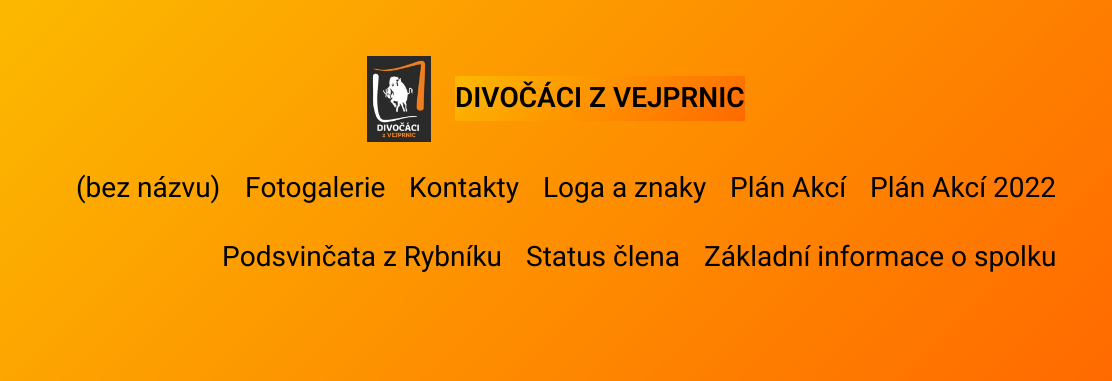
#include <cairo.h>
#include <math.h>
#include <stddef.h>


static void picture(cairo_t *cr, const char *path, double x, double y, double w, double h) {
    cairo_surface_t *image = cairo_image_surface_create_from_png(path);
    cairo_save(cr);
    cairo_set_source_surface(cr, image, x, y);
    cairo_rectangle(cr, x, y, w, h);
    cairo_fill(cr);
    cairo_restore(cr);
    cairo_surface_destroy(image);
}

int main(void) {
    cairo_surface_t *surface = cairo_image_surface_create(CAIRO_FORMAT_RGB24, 1112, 381);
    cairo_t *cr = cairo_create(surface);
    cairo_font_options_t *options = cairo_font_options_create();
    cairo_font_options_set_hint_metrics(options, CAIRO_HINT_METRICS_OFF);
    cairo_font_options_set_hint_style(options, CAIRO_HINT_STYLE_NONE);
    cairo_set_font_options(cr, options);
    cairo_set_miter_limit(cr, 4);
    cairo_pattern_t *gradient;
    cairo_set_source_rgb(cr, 1, 1, 1);
    cairo_paint(cr);
    gradient = cairo_pattern_create_linear(180, -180, 932, 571);
    cairo_pattern_add_color_stop_rgba(gradient, 0, 0.988, 0.725, 0, 1);
    cairo_pattern_add_color_stop_rgba(gradient, 1, 1, 0.412, 0, 1);
    cairo_set_source(cr, gradient);
    cairo_pattern_destroy(gradient);
    cairo_rectangle(cr, 0, 0, 1112, 381);
    cairo_fill(cr);
    picture(cr, "img1.png", 367, 56, 64, 86);
    gradient = cairo_pattern_create_linear(516, 15, 684, 182);
    cairo_pattern_add_color_stop_rgba(gradient, 0, 0.988, 0.725, 0, 1);
    cairo_pattern_add_color_stop_rgba(gradient, 1, 1, 0.412, 0, 1);
    cairo_set_source(cr, gradient);
    cairo_pattern_destroy(gradient);
    cairo_rectangle(cr, 455, 76, 290, 45);
    cairo_fill(cr);
    cairo_select_font_face(cr, "Roboto SemiBold", CAIRO_FONT_SLANT_NORMAL, CAIRO_FONT_WEIGHT_NORMAL);
    cairo_set_font_size(cr, 28);
    cairo_set_source_rgb(cr, 0, 0, 0);
    cairo_move_to(cr, 455, 107);
    cairo_show_text(cr, "DIVOČÁCI Z VEJPRNIC");
    cairo_select_font_face(cr, "Roboto", CAIRO_FONT_SLANT_NORMAL, CAIRO_FONT_WEIGHT_NORMAL);
    cairo_move_to(cr, 76, 197);
    cairo_show_text(cr, "(bez názvu)");
    cairo_move_to(cr, 245, 197);
    cairo_show_text(cr, "Fotogalerie");
    cairo_move_to(cr, 409, 197);
    cairo_show_text(cr, "Kontakty");
    cairo_move_to(cr, 543, 197);
    cairo_show_text(cr, "Loga a znaky");
    cairo_move_to(cr, 730, 197);
    cairo_show_text(cr, "Plán Akcí");
    cairo_move_to(cr, 870, 197);
    cairo_show_text(cr, "Plán Akcí 2022");
    cairo_move_to(cr, 222, 266);
    cairo_show_text(cr, "Podsvinčata z Rybníku");
    cairo_move_to(cr, 526, 266);
    cairo_show_text(cr, "Status člena");
    cairo_move_to(cr, 704, 266);
    cairo_show_text(cr, "Základní informace o spolku");
    cairo_surface_write_to_png(surface, "page.png");
    cairo_font_options_destroy(options);
    cairo_destroy(cr);
    cairo_surface_destroy(surface);
    return 0;
}
